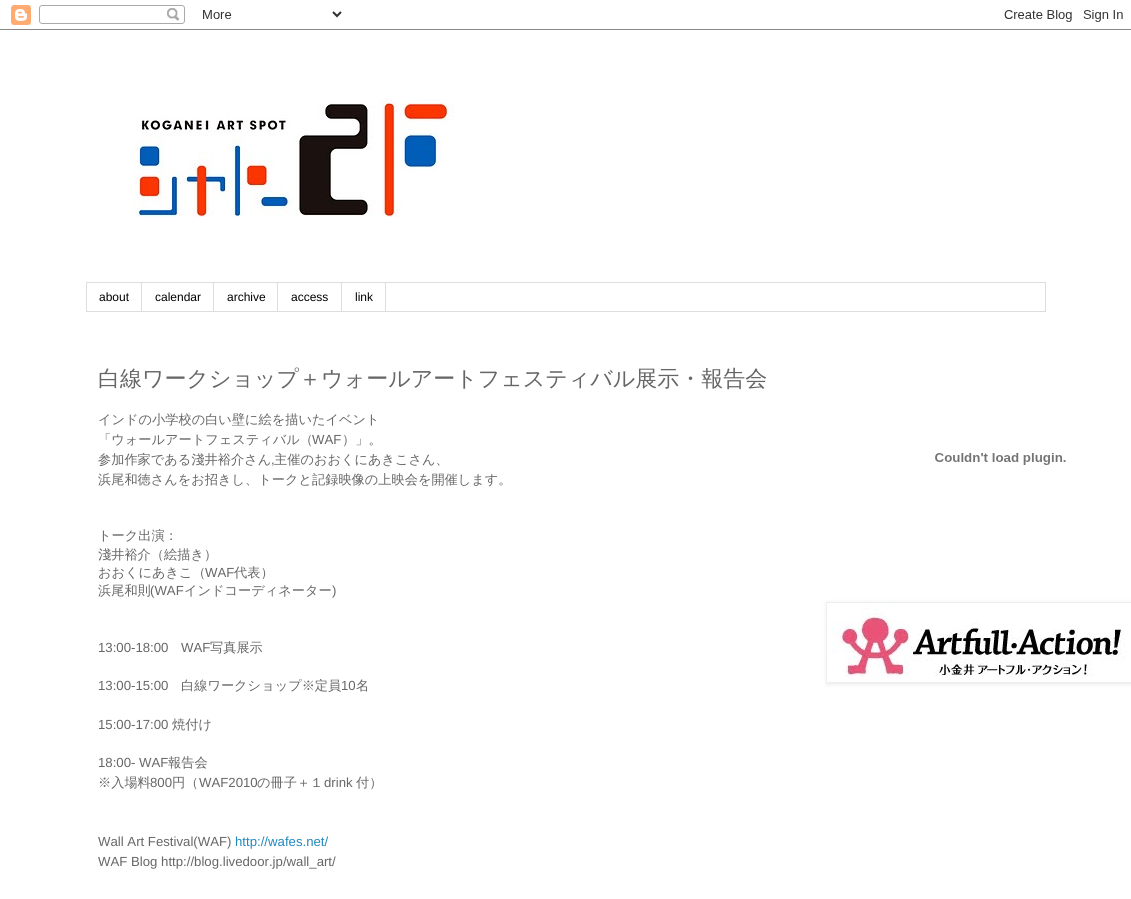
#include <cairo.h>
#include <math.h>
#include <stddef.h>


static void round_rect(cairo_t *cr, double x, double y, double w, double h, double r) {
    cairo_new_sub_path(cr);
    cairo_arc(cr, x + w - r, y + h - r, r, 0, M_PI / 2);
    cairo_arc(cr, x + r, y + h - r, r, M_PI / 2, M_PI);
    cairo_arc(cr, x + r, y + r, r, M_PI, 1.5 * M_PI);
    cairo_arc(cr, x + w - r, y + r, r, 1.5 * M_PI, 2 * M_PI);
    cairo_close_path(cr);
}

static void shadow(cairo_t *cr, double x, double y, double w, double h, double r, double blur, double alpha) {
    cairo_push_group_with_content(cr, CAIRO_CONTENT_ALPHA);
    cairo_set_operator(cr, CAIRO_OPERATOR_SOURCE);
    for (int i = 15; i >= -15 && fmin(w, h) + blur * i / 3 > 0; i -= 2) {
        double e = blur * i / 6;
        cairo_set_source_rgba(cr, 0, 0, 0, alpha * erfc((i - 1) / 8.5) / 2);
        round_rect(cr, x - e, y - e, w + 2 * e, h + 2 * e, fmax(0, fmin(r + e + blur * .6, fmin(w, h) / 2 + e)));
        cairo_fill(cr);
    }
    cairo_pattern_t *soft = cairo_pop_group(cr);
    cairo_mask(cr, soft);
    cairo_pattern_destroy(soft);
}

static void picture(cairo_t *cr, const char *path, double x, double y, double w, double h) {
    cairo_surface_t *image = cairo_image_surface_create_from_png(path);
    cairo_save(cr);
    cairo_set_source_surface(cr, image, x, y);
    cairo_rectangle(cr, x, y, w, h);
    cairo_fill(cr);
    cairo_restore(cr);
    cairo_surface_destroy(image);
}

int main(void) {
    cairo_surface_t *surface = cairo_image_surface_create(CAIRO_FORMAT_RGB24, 1131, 899);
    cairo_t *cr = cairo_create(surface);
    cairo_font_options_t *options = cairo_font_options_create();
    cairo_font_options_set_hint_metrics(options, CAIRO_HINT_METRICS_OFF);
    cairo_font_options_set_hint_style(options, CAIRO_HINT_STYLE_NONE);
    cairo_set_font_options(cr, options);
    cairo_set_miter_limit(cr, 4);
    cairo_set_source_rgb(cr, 1, 1, 1);
    cairo_paint(cr);
    picture(cr, "img1.png", 0, 5, 1131, 25);
    picture(cr, "img2.png", 134, 98, 320, 119);
    cairo_rectangle(cr, 86.5, 282.5, 959, 29);
    cairo_set_source_rgb(cr, 0.867, 0.867, 0.867);
    cairo_set_line_width(cr, 1);
    cairo_stroke(cr);
    cairo_rectangle(cr, 141, 283, 1, 28);
    cairo_fill(cr);
    cairo_select_font_face(cr, "Liberation Sans", CAIRO_FONT_SLANT_NORMAL, CAIRO_FONT_WEIGHT_NORMAL);
    cairo_set_font_size(cr, 12);
    cairo_set_source_rgb(cr, 0, 0, 0);
    cairo_move_to(cr, 99, 301);
    cairo_show_text(cr, "about");
    cairo_set_source_rgb(cr, 0.867, 0.867, 0.867);
    cairo_rectangle(cr, 213, 283, 1, 28);
    cairo_fill(cr);
    cairo_set_source_rgb(cr, 0, 0, 0);
    cairo_move_to(cr, 155, 301);
    cairo_show_text(cr, "calendar");
    cairo_set_source_rgb(cr, 0.867, 0.867, 0.867);
    cairo_rectangle(cr, 277, 283, 1, 28);
    cairo_fill(cr);
    cairo_set_source_rgb(cr, 0, 0, 0);
    cairo_move_to(cr, 227, 301);
    cairo_show_text(cr, "archive");
    cairo_set_source_rgb(cr, 0.867, 0.867, 0.867);
    cairo_rectangle(cr, 341, 283, 1, 28);
    cairo_fill(cr);
    cairo_set_source_rgb(cr, 0, 0, 0);
    cairo_move_to(cr, 291, 301);
    cairo_show_text(cr, "access");
    cairo_set_source_rgb(cr, 0.867, 0.867, 0.867);
    cairo_rectangle(cr, 385, 283, 1, 28);
    cairo_fill(cr);
    cairo_set_source_rgb(cr, 0, 0, 0);
    cairo_move_to(cr, 355, 301);
    cairo_show_text(cr, "link");
    cairo_select_font_face(cr, "WenQuanYi Zen Hei Medium", CAIRO_FONT_SLANT_NORMAL, CAIRO_FONT_WEIGHT_NORMAL);
    cairo_set_font_size(cr, 22);
    cairo_set_source_rgb(cr, 0.4, 0.4, 0.4);
    cairo_move_to(cr, 98, 386);
    cairo_show_text(cr, "白線ワークショップ＋ウォールアートフェスティバル展示・報告会");
    cairo_set_font_size(cr, 13.2);
    cairo_move_to(cr, 98, 424);
    cairo_show_text(cr, "インドの小学校の白い壁に絵を描いたイベント");
    cairo_move_to(cr, 98, 444);
    cairo_show_text(cr, "「ウォールアートフェスティバル（");
    cairo_select_font_face(cr, "Liberation Sans", CAIRO_FONT_SLANT_NORMAL, CAIRO_FONT_WEIGHT_NORMAL);
    cairo_move_to(cr, 312, 444);
    cairo_show_text(cr, "WAF");
    cairo_select_font_face(cr, "WenQuanYi Zen Hei Medium", CAIRO_FONT_SLANT_NORMAL, CAIRO_FONT_WEIGHT_NORMAL);
    cairo_move_to(cr, 342, 444);
    cairo_show_text(cr, "）」。");
    cairo_move_to(cr, 98, 464);
    cairo_show_text(cr, "参加作家である淺井裕介さん");
    cairo_select_font_face(cr, "Liberation Sans", CAIRO_FONT_SLANT_NORMAL, CAIRO_FONT_WEIGHT_NORMAL);
    cairo_move_to(cr, 271, 464);
    cairo_show_text(cr, ",");
    cairo_select_font_face(cr, "WenQuanYi Zen Hei Medium", CAIRO_FONT_SLANT_NORMAL, CAIRO_FONT_WEIGHT_NORMAL);
    cairo_move_to(cr, 274, 464);
    cairo_show_text(cr, "主催のおおくにあきこさん、");
    cairo_move_to(cr, 98, 484);
    cairo_show_text(cr, "浜尾和徳さんをお招きし、トークと記録映像の上映会を開催します。");
    cairo_move_to(cr, 98, 540);
    cairo_show_text(cr, "トーク出演：");
    cairo_move_to(cr, 98, 559);
    cairo_show_text(cr, "淺井裕介（絵描き）");
    cairo_move_to(cr, 98, 577);
    cairo_show_text(cr, "おおくにあきこ（");
    cairo_select_font_face(cr, "Liberation Sans", CAIRO_FONT_SLANT_NORMAL, CAIRO_FONT_WEIGHT_NORMAL);
    cairo_move_to(cr, 205, 577);
    cairo_show_text(cr, "WAF");
    cairo_select_font_face(cr, "WenQuanYi Zen Hei Medium", CAIRO_FONT_SLANT_NORMAL, CAIRO_FONT_WEIGHT_NORMAL);
    cairo_move_to(cr, 234, 577);
    cairo_show_text(cr, "代表）");
    cairo_move_to(cr, 98, 595);
    cairo_show_text(cr, "浜尾和則");
    cairo_select_font_face(cr, "Liberation Sans", CAIRO_FONT_SLANT_NORMAL, CAIRO_FONT_WEIGHT_NORMAL);
    cairo_move_to(cr, 150, 595);
    cairo_show_text(cr, "(WAF");
    cairo_select_font_face(cr, "WenQuanYi Zen Hei Medium", CAIRO_FONT_SLANT_NORMAL, CAIRO_FONT_WEIGHT_NORMAL);
    cairo_move_to(cr, 184, 595);
    cairo_show_text(cr, "インドコーディネーター");
    cairo_select_font_face(cr, "Liberation Sans", CAIRO_FONT_SLANT_NORMAL, CAIRO_FONT_WEIGHT_NORMAL);
    cairo_move_to(cr, 332, 595);
    cairo_show_text(cr, ")");
    cairo_move_to(cr, 98, 652);
    cairo_show_text(cr, "13:00-18:00");
    cairo_move_to(cr, 181, 652);
    cairo_show_text(cr, "WAF");
    cairo_select_font_face(cr, "WenQuanYi Zen Hei Medium", CAIRO_FONT_SLANT_NORMAL, CAIRO_FONT_WEIGHT_NORMAL);
    cairo_move_to(cr, 210, 652);
    cairo_show_text(cr, "写真展示");
    cairo_select_font_face(cr, "Liberation Sans", CAIRO_FONT_SLANT_NORMAL, CAIRO_FONT_WEIGHT_NORMAL);
    cairo_move_to(cr, 98, 690);
    cairo_show_text(cr, "13:00-15:00");
    cairo_select_font_face(cr, "WenQuanYi Zen Hei Medium", CAIRO_FONT_SLANT_NORMAL, CAIRO_FONT_WEIGHT_NORMAL);
    cairo_move_to(cr, 181, 690);
    cairo_show_text(cr, "白線ワークショップ※定員");
    cairo_select_font_face(cr, "Liberation Sans", CAIRO_FONT_SLANT_NORMAL, CAIRO_FONT_WEIGHT_NORMAL);
    cairo_move_to(cr, 341, 690);
    cairo_show_text(cr, "10");
    cairo_select_font_face(cr, "WenQuanYi Zen Hei Medium", CAIRO_FONT_SLANT_NORMAL, CAIRO_FONT_WEIGHT_NORMAL);
    cairo_move_to(cr, 356, 690);
    cairo_show_text(cr, "名");
    cairo_select_font_face(cr, "Liberation Sans", CAIRO_FONT_SLANT_NORMAL, CAIRO_FONT_WEIGHT_NORMAL);
    cairo_move_to(cr, 98, 729);
    cairo_show_text(cr, "15:00-17:00");
    cairo_select_font_face(cr, "WenQuanYi Zen Hei Medium", CAIRO_FONT_SLANT_NORMAL, CAIRO_FONT_WEIGHT_NORMAL);
    cairo_move_to(cr, 172, 729);
    cairo_show_text(cr, "焼付け");
    cairo_select_font_face(cr, "Liberation Sans", CAIRO_FONT_SLANT_NORMAL, CAIRO_FONT_WEIGHT_NORMAL);
    cairo_move_to(cr, 98, 767);
    cairo_show_text(cr, "18:00- WAF");
    cairo_select_font_face(cr, "WenQuanYi Zen Hei Medium", CAIRO_FONT_SLANT_NORMAL, CAIRO_FONT_WEIGHT_NORMAL);
    cairo_move_to(cr, 168, 767);
    cairo_show_text(cr, "報告会");
    cairo_move_to(cr, 98, 787);
    cairo_show_text(cr, "※入場料");
    cairo_select_font_face(cr, "Liberation Sans", CAIRO_FONT_SLANT_NORMAL, CAIRO_FONT_WEIGHT_NORMAL);
    cairo_move_to(cr, 150, 787);
    cairo_show_text(cr, "800");
    cairo_select_font_face(cr, "WenQuanYi Zen Hei Medium", CAIRO_FONT_SLANT_NORMAL, CAIRO_FONT_WEIGHT_NORMAL);
    cairo_move_to(cr, 172, 787);
    cairo_show_text(cr, "円（");
    cairo_select_font_face(cr, "Liberation Sans", CAIRO_FONT_SLANT_NORMAL, CAIRO_FONT_WEIGHT_NORMAL);
    cairo_move_to(cr, 199, 787);
    cairo_show_text(cr, "WAF2010");
    cairo_select_font_face(cr, "WenQuanYi Zen Hei Medium", CAIRO_FONT_SLANT_NORMAL, CAIRO_FONT_WEIGHT_NORMAL);
    cairo_move_to(cr, 257, 787);
    cairo_show_text(cr, "の冊子＋１");
    cairo_select_font_face(cr, "Liberation Sans", CAIRO_FONT_SLANT_NORMAL, CAIRO_FONT_WEIGHT_NORMAL);
    cairo_move_to(cr, 324, 787);
    cairo_show_text(cr, "drink");
    cairo_select_font_face(cr, "WenQuanYi Zen Hei Medium", CAIRO_FONT_SLANT_NORMAL, CAIRO_FONT_WEIGHT_NORMAL);
    cairo_move_to(cr, 356, 787);
    cairo_show_text(cr, "付）");
    cairo_select_font_face(cr, "Liberation Sans", CAIRO_FONT_SLANT_NORMAL, CAIRO_FONT_WEIGHT_NORMAL);
    cairo_move_to(cr, 98, 846);
    cairo_show_text(cr, "Wall Art Festival(WAF)");
    cairo_set_source_rgb(cr, 0.133, 0.533, 0.733);
    cairo_move_to(cr, 235, 846);
    cairo_show_text(cr, "http://wafes.net/");
    cairo_set_source_rgb(cr, 0.4, 0.4, 0.4);
    cairo_move_to(cr, 98, 866);
    cairo_show_text(cr, "WAF Blog http://blog.livedoor.jp/wall_art/");
    picture(cr, "img3.png", 935, 453, 131, 12);
    cairo_save(cr);
    cairo_set_fill_rule(cr, CAIRO_FILL_RULE_EVEN_ODD);
    cairo_new_path(cr);
    cairo_move_to(cr, 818, 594);
    cairo_line_to(cr, 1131, 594);
    cairo_line_to(cr, 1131, 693);
    cairo_line_to(cr, 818, 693);
    cairo_close_path(cr);
    cairo_move_to(cr, 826, 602);
    cairo_line_to(cr, 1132, 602);
    cairo_line_to(cr, 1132, 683);
    cairo_line_to(cr, 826, 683);
    cairo_close_path(cr);
    cairo_clip(cr);
    cairo_set_source_rgb(cr, 0, 0, 0);
    shadow(cr, 827, 603, 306, 81, 0, 2.5, 0.1);
    cairo_restore(cr);
    cairo_rectangle(cr, 826.5, 602.5, 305, 80);
    cairo_set_source_rgb(cr, 0.933, 0.933, 0.933);
    cairo_stroke(cr);
    picture(cr, "img4.png", 829, 605, 296, 75);
    cairo_surface_write_to_png(surface, "page.png");
    cairo_font_options_destroy(options);
    cairo_destroy(cr);
    cairo_surface_destroy(surface);
    return 0;
}
